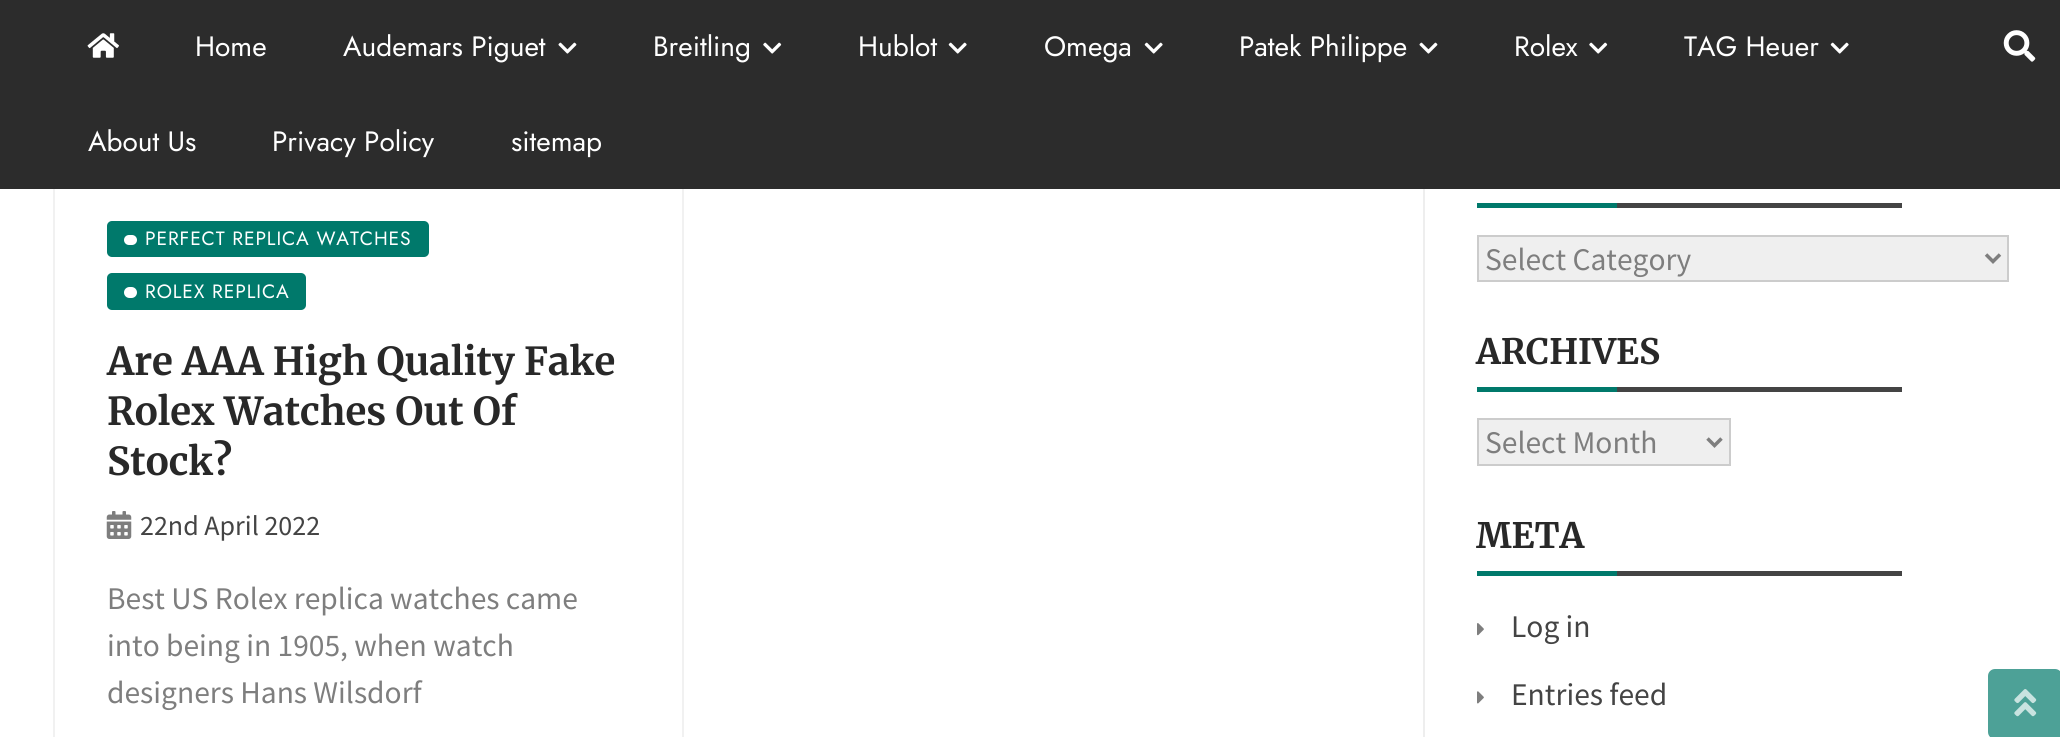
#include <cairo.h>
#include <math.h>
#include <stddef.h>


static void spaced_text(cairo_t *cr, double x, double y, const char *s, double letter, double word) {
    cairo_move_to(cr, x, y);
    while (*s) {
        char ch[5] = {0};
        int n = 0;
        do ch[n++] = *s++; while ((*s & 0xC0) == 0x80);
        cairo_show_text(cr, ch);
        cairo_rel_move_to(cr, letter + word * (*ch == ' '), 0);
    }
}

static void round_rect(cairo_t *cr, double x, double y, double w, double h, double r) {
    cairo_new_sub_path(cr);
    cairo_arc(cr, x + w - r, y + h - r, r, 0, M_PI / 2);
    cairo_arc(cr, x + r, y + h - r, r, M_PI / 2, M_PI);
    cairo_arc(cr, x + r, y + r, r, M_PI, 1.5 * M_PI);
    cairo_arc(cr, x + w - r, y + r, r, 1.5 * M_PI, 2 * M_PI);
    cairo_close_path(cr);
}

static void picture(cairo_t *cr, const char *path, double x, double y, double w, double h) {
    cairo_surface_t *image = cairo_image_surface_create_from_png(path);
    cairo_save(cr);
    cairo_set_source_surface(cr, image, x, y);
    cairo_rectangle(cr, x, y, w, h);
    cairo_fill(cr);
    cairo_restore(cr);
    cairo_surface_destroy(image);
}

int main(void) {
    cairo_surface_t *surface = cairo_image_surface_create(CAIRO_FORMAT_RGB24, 2060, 737);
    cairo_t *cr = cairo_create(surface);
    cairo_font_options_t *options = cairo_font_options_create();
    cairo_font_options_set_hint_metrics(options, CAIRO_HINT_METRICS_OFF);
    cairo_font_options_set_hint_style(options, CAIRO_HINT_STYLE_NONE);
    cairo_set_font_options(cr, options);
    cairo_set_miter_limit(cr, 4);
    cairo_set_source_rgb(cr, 1, 1, 1);
    cairo_paint(cr);
    cairo_rectangle(cr, 54, 178, 629, 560);
    cairo_set_source_rgb(cr, 0.945, 0.945, 0.945);
    cairo_stroke(cr);
    cairo_set_source_rgb(cr, 0.173, 0.173, 0.173);
    cairo_rectangle(cr, 0, 0, 2060, 189);
    cairo_fill(cr);
    picture(cr, "img1.png", 87, 33, 32, 25);
    cairo_select_font_face(cr, "Jost", CAIRO_FONT_SLANT_NORMAL, CAIRO_FONT_WEIGHT_NORMAL);
    cairo_set_font_size(cr, 28);
    cairo_set_source_rgb(cr, 1, 1, 1);
    cairo_move_to(cr, 195, 56);
    cairo_show_text(cr, "Home");
    cairo_move_to(cr, 343, 56);
    cairo_show_text(cr, "Audemars Piguet");
    picture(cr, "img2.png", 558, 42, 19, 12);
    cairo_move_to(cr, 653, 56);
    cairo_show_text(cr, "Breitling");
    picture(cr, "img3.png", 763, 42, 19, 12);
    cairo_move_to(cr, 858, 56);
    cairo_show_text(cr, "Hublot");
    picture(cr, "img4.png", 948, 42, 19, 12);
    cairo_move_to(cr, 1044, 56);
    cairo_show_text(cr, "Omega");
    picture(cr, "img4.png", 1144, 42, 19, 12);
    cairo_move_to(cr, 1239, 56);
    cairo_show_text(cr, "Patek Philippe");
    picture(cr, "img2.png", 1419, 42, 19, 12);
    cairo_move_to(cr, 1514, 56);
    cairo_show_text(cr, "Rolex");
    picture(cr, "img3.png", 1589, 42, 19, 12);
    cairo_move_to(cr, 1684, 56);
    cairo_show_text(cr, "TAG Heuer");
    picture(cr, "img4.png", 1830, 42, 19, 12);
    cairo_move_to(cr, 88, 151);
    cairo_show_text(cr, "About Us");
    cairo_move_to(cr, 272, 151);
    cairo_show_text(cr, "Privacy Policy");
    cairo_move_to(cr, 511, 151);
    cairo_show_text(cr, "sitemap");
    picture(cr, "img5.png", 2003, 30, 33, 32);
    cairo_set_source_rgb(cr, 0, 0.475, 0.42);
    round_rect(cr, 107, 221, 322, 36, 5);
    cairo_fill(cr);
    cairo_set_source_rgb(cr, 1, 1, 1);
    round_rect(cr, 124, 235, 13, 10, 5);
    cairo_fill(cr);
    cairo_set_font_size(cr, 19.25);
    spaced_text(cr, 145, 245, "PERFECT REPLICA WATCHES", 0.9, 0);
    cairo_set_source_rgb(cr, 0, 0.475, 0.42);
    round_rect(cr, 107, 273, 199, 37, 5);
    cairo_fill(cr);
    cairo_set_source_rgb(cr, 1, 1, 1);
    round_rect(cr, 124, 287, 13, 11, 5.5);
    cairo_fill(cr);
    spaced_text(cr, 145, 298, "ROLEX REPLICA", 0.9, 0);
    cairo_select_font_face(cr, "Merriweather", CAIRO_FONT_SLANT_NORMAL, CAIRO_FONT_WEIGHT_BOLD);
    cairo_set_font_size(cr, 38.5);
    cairo_set_source_rgb(cr, 0.157, 0.157, 0.157);
    cairo_move_to(cr, 107, 375);
    cairo_show_text(cr, "Are AAA High Quality Fake");
    cairo_move_to(cr, 107, 425);
    cairo_show_text(cr, "Rolex Watches Out Of");
    cairo_move_to(cr, 107, 475);
    cairo_show_text(cr, "Stock?");
    picture(cr, "img6.png", 106, 511, 26, 28);
    cairo_select_font_face(cr, "Source Sans Pro", CAIRO_FONT_SLANT_NORMAL, CAIRO_FONT_WEIGHT_NORMAL);
    cairo_set_font_size(cr, 28);
    cairo_set_source_rgb(cr, 0.267, 0.267, 0.267);
    cairo_move_to(cr, 140, 535);
    cairo_show_text(cr, "22nd April 2022");
    cairo_set_font_size(cr, 31.5);
    cairo_set_source_rgb(cr, 0.494, 0.494, 0.494);
    cairo_move_to(cr, 107, 609);
    cairo_show_text(cr, "Best US Rolex replica watches came");
    cairo_move_to(cr, 107, 656);
    cairo_show_text(cr, "into being in 1905, when watch");
    cairo_move_to(cr, 107, 703);
    cairo_show_text(cr, "designers Hans Wilsdorf");
    cairo_set_source_rgb(cr, 0.933, 0.933, 0.933);
    cairo_rectangle(cr, 1423, 189, 2, 548);
    cairo_fill(cr);
    cairo_set_source_rgb(cr, 0.267, 0.267, 0.267);
    cairo_rectangle(cr, 1617, 203, 285, 5);
    cairo_fill(cr);
    cairo_set_source_rgb(cr, 0, 0.475, 0.42);
    cairo_rectangle(cr, 1477, 203, 140, 5);
    cairo_fill(cr);
    cairo_set_source_rgb(cr, 0.937, 0.937, 0.937);
    cairo_rectangle(cr, 1478, 236, 530, 45);
    cairo_fill_preserve(cr);
    cairo_set_source_rgb(cr, 0.8, 0.8, 0.8);
    cairo_stroke(cr);
    cairo_new_path(cr);
    cairo_move_to(cr, 1986, 254.5);
    cairo_line_to(cr, 1993, 261.5);
    cairo_line_to(cr, 2000, 254.5);
    cairo_set_source_rgb(cr, 0.494, 0.494, 0.494);
    cairo_set_line_width(cr, 3.5);
    cairo_stroke(cr);
    cairo_move_to(cr, 1485, 270);
    cairo_show_text(cr, "Select Category");
    cairo_set_source_rgb(cr, 0.267, 0.267, 0.267);
    cairo_rectangle(cr, 1617, 387, 285, 5);
    cairo_fill(cr);
    cairo_select_font_face(cr, "Merriweather", CAIRO_FONT_SLANT_NORMAL, CAIRO_FONT_WEIGHT_BOLD);
    cairo_set_font_size(cr, 35);
    cairo_set_source_rgb(cr, 0.157, 0.157, 0.157);
    cairo_move_to(cr, 1476, 364);
    cairo_show_text(cr, "ARCHIVES");
    cairo_set_source_rgb(cr, 0, 0.475, 0.42);
    cairo_rectangle(cr, 1477, 387, 140, 5);
    cairo_fill(cr);
    cairo_set_source_rgb(cr, 0.937, 0.937, 0.937);
    cairo_rectangle(cr, 1478, 419, 252, 46);
    cairo_fill_preserve(cr);
    cairo_set_source_rgb(cr, 0.8, 0.8, 0.8);
    cairo_set_line_width(cr, 2);
    cairo_stroke(cr);
    cairo_new_path(cr);
    cairo_move_to(cr, 1707.5, 438.5);
    cairo_line_to(cr, 1714.5, 445.5);
    cairo_line_to(cr, 1721.5, 438.5);
    cairo_set_source_rgb(cr, 0.494, 0.494, 0.494);
    cairo_set_line_width(cr, 3.5);
    cairo_stroke(cr);
    cairo_select_font_face(cr, "Source Sans Pro", CAIRO_FONT_SLANT_NORMAL, CAIRO_FONT_WEIGHT_NORMAL);
    cairo_set_font_size(cr, 31.5);
    cairo_move_to(cr, 1485, 453);
    cairo_show_text(cr, "Select Month");
    cairo_set_source_rgb(cr, 0.267, 0.267, 0.267);
    cairo_rectangle(cr, 1617, 571, 285, 5);
    cairo_fill(cr);
    cairo_select_font_face(cr, "Merriweather", CAIRO_FONT_SLANT_NORMAL, CAIRO_FONT_WEIGHT_BOLD);
    cairo_set_font_size(cr, 35);
    cairo_set_source_rgb(cr, 0.157, 0.157, 0.157);
    cairo_move_to(cr, 1476, 548);
    cairo_show_text(cr, "META");
    cairo_set_source_rgb(cr, 0, 0.475, 0.42);
    cairo_rectangle(cr, 1477, 571, 140, 5);
    cairo_fill(cr);
    picture(cr, "img7.png", 1477, 623, 7, 13);
    cairo_select_font_face(cr, "Source Sans Pro", CAIRO_FONT_SLANT_NORMAL, CAIRO_FONT_WEIGHT_NORMAL);
    cairo_set_font_size(cr, 31.5);
    cairo_set_source_rgb(cr, 0.267, 0.267, 0.267);
    cairo_move_to(cr, 1511, 637);
    cairo_show_text(cr, "Log in");
    picture(cr, "img8.png", 1477, 691, 7, 13);
    cairo_move_to(cr, 1511, 705);
    cairo_show_text(cr, "Entries feed");
    cairo_set_source_rgb(cr, 0.302, 0.631, 0.592);
    round_rect(cr, 1988, 669, 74, 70, 7);
    cairo_fill(cr);
    picture(cr, "img9.png", 2014, 689, 23, 28);
    cairo_surface_write_to_png(surface, "page.png");
    cairo_font_options_destroy(options);
    cairo_destroy(cr);
    cairo_surface_destroy(surface);
    return 0;
}
